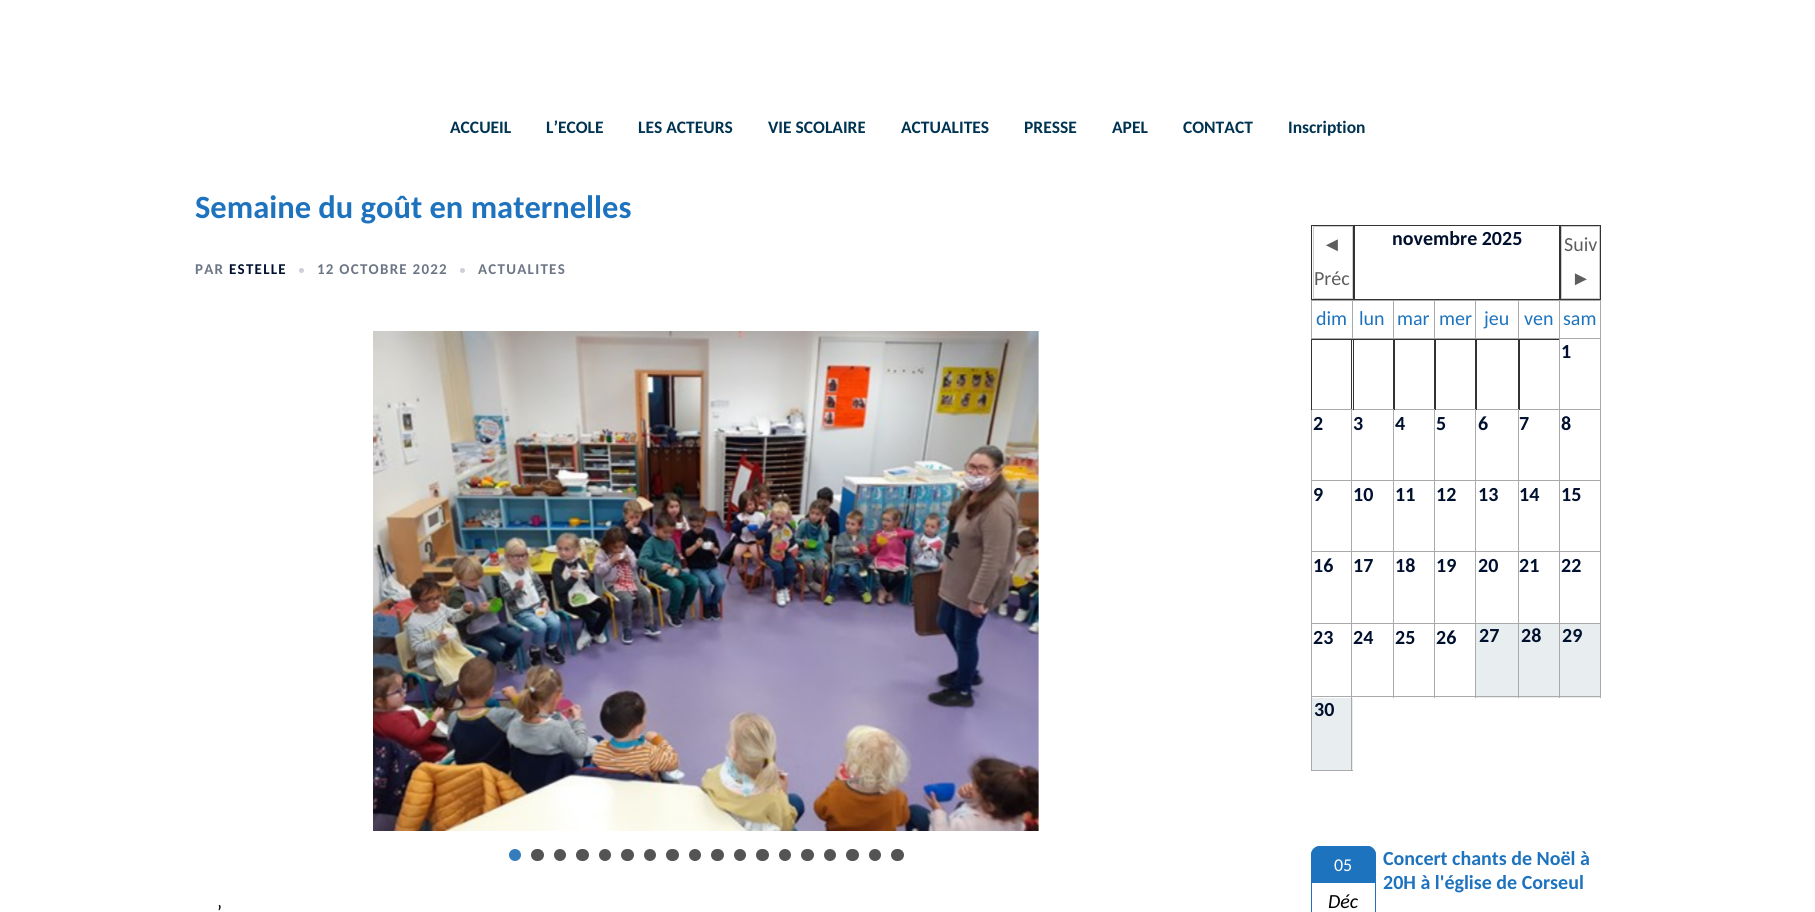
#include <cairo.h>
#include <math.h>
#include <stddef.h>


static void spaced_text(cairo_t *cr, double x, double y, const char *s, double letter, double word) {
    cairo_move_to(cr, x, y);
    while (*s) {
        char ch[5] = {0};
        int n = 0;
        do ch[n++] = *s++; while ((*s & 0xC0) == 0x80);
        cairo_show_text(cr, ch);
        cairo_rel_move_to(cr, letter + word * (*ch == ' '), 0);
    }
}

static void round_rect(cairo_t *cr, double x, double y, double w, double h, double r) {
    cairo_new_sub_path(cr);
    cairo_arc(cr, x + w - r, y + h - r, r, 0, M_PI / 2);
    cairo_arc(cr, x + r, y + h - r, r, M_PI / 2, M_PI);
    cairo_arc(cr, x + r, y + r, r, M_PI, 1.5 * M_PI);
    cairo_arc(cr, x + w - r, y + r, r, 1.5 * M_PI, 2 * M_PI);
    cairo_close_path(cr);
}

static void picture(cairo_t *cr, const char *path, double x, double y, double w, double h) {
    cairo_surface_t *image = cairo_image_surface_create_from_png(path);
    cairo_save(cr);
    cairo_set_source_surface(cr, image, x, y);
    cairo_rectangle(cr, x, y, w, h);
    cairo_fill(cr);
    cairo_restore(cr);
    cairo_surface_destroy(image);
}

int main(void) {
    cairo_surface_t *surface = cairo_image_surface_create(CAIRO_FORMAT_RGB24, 1815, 912);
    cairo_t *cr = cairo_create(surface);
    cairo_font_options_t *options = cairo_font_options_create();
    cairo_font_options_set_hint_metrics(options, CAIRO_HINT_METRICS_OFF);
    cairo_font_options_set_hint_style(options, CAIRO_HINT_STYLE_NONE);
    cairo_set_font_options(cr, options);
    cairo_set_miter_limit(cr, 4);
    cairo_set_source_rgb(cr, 1, 1, 1);
    cairo_paint(cr);
    cairo_select_font_face(cr, "Carlito", CAIRO_FONT_SLANT_NORMAL, CAIRO_FONT_WEIGHT_BOLD);
    cairo_set_font_size(cr, 17.5);
    cairo_set_source_rgb(cr, 0, 0.2, 0.318);
    cairo_move_to(cr, 450, 133);
    cairo_show_text(cr, "ACCUEIL");
    cairo_move_to(cr, 546, 133);
    cairo_show_text(cr, "L’ECOLE");
    cairo_move_to(cr, 638, 133);
    cairo_show_text(cr, "LES ACTEURS");
    cairo_move_to(cr, 768, 133);
    cairo_show_text(cr, "VIE SCOLAIRE");
    cairo_move_to(cr, 901, 133);
    cairo_show_text(cr, "ACTUALITES");
    cairo_move_to(cr, 1024, 133);
    cairo_show_text(cr, "PRESSE");
    cairo_move_to(cr, 1112, 133);
    cairo_show_text(cr, "APEL");
    cairo_move_to(cr, 1183, 133);
    cairo_show_text(cr, "CONTACT");
    cairo_move_to(cr, 1288, 133);
    cairo_show_text(cr, "Inscription");
    cairo_set_font_size(cr, 32.5);
    cairo_set_source_rgb(cr, 0.118, 0.451, 0.745);
    cairo_move_to(cr, 195, 218);
    cairo_show_text(cr, "Semaine du goût en maternelles");
    cairo_set_font_size(cr, 15);
    cairo_set_source_rgb(cr, 0.427, 0.463, 0.522);
    spaced_text(cr, 195, 274, "PAR", 1.25, 0);
    cairo_set_source_rgb(cr, 0, 0.063, 0.18);
    spaced_text(cr, 229, 274, "ESTELLE", 1.25, 0);
    cairo_set_source_rgb(cr, 0.8, 0.812, 0.835);
    cairo_new_path(cr);
    cairo_arc(cr, 301.5, 270.5, 2.5, 0, 2 * M_PI);
    cairo_fill(cr);
    cairo_set_source_rgb(cr, 0.427, 0.463, 0.522);
    spaced_text(cr, 317, 274, "12 OCTOBRE 2022", 1.25, 0);
    cairo_set_source_rgb(cr, 0.8, 0.812, 0.835);
    cairo_new_path(cr);
    cairo_arc(cr, 462.5, 270.5, 2.5, 0, 2 * M_PI);
    cairo_fill(cr);
    cairo_set_source_rgb(cr, 0.427, 0.463, 0.522);
    spaced_text(cr, 478, 274, "ACTUALITES", 1.25, 0);
    picture(cr, "img1.png", 373, 331, 666, 500);
    cairo_set_source_rgb(cr, 0.208, 0.486, 0.741);
    cairo_arc(cr, 515, 855, 6, 0, 2 * M_PI);
    cairo_fill(cr);
    cairo_set_source_rgb(cr, 0.329, 0.329, 0.329);
    round_rect(cr, 531, 849, 13, 12, 6);
    cairo_fill(cr);
    cairo_arc(cr, 560, 855, 6, 0, 2 * M_PI);
    cairo_fill(cr);
    round_rect(cr, 576, 849, 13, 12, 6);
    cairo_fill(cr);
    cairo_arc(cr, 605, 855, 6, 0, 2 * M_PI);
    cairo_fill(cr);
    round_rect(cr, 621, 849, 13, 12, 6);
    cairo_fill(cr);
    cairo_arc(cr, 650, 855, 6, 0, 2 * M_PI);
    cairo_fill(cr);
    round_rect(cr, 666, 849, 13, 12, 6);
    cairo_fill(cr);
    cairo_arc(cr, 695, 855, 6, 0, 2 * M_PI);
    cairo_fill(cr);
    round_rect(cr, 711, 849, 13, 12, 6);
    cairo_fill(cr);
    cairo_arc(cr, 740, 855, 6, 0, 2 * M_PI);
    cairo_fill(cr);
    round_rect(cr, 756, 849, 13, 12, 6);
    cairo_fill(cr);
    cairo_arc(cr, 785, 855, 6, 0, 2 * M_PI);
    cairo_fill(cr);
    round_rect(cr, 801, 849, 13, 12, 6);
    cairo_fill(cr);
    cairo_arc(cr, 830, 855, 6, 0, 2 * M_PI);
    cairo_fill(cr);
    round_rect(cr, 846, 849, 13, 12, 6);
    cairo_fill(cr);
    cairo_arc(cr, 875, 855, 6, 0, 2 * M_PI);
    cairo_fill(cr);
    round_rect(cr, 891, 849, 13, 12, 6);
    cairo_fill(cr);
    cairo_select_font_face(cr, "Carlito", CAIRO_FONT_SLANT_NORMAL, CAIRO_FONT_WEIGHT_NORMAL);
    cairo_set_font_size(cr, 20);
    cairo_set_source_rgb(cr, 0, 0, 0);
    spaced_text(cr, 217, 919, "’", 0, 1);
    cairo_rectangle(cr, 1311.5, 225.5, 42, 74);
    cairo_set_source_rgb(cr, 0.2, 0.2, 0.2);
    cairo_set_line_width(cr, 1);
    cairo_stroke(cr);
    cairo_rectangle(cr, 1313.5, 226.5, 39, 72);
    cairo_set_source_rgb(cr, 0.8, 0.8, 0.8);
    cairo_stroke(cr);
    cairo_select_font_face(cr, "Liberation Sans", CAIRO_FONT_SLANT_NORMAL, CAIRO_FONT_WEIGHT_NORMAL);
    cairo_set_source_rgb(cr, 0.369, 0.369, 0.369);
    cairo_move_to(cr, 1322, 251);
    cairo_show_text(cr, "◄");
    cairo_select_font_face(cr, "Carlito", CAIRO_FONT_SLANT_NORMAL, CAIRO_FONT_WEIGHT_NORMAL);
    cairo_move_to(cr, 1314, 285);
    cairo_show_text(cr, "Préc");
    cairo_rectangle(cr, 1354.5, 225.5, 205, 74);
    cairo_set_source_rgb(cr, 0.2, 0.2, 0.2);
    cairo_stroke(cr);
    cairo_select_font_face(cr, "Carlito", CAIRO_FONT_SLANT_NORMAL, CAIRO_FONT_WEIGHT_BOLD);
    cairo_set_source_rgb(cr, 0, 0.063, 0.18);
    cairo_move_to(cr, 1392, 245);
    cairo_show_text(cr, "novembre 2025");
    cairo_rectangle(cr, 1560.5, 225.5, 40, 74);
    cairo_set_source_rgb(cr, 0.2, 0.2, 0.2);
    cairo_stroke(cr);
    cairo_rectangle(cr, 1561.5, 226.5, 38, 72);
    cairo_set_source_rgb(cr, 0.8, 0.8, 0.8);
    cairo_stroke(cr);
    cairo_select_font_face(cr, "Carlito", CAIRO_FONT_SLANT_NORMAL, CAIRO_FONT_WEIGHT_NORMAL);
    cairo_set_source_rgb(cr, 0.369, 0.369, 0.369);
    cairo_move_to(cr, 1564, 251);
    cairo_show_text(cr, "Suiv");
    cairo_select_font_face(cr, "Liberation Sans", CAIRO_FONT_SLANT_NORMAL, CAIRO_FONT_WEIGHT_NORMAL);
    cairo_move_to(cr, 1571, 285);
    cairo_show_text(cr, "►");
    cairo_rectangle(cr, 1311.5, 300.5, 41, 38);
    cairo_set_source_rgb(cr, 0.667, 0.667, 0.667);
    cairo_stroke(cr);
    cairo_select_font_face(cr, "Carlito", CAIRO_FONT_SLANT_NORMAL, CAIRO_FONT_WEIGHT_NORMAL);
    cairo_set_source_rgb(cr, 0.118, 0.451, 0.745);
    cairo_move_to(cr, 1316, 325);
    cairo_show_text(cr, "dim");
    cairo_set_source_rgb(cr, 0.667, 0.667, 0.667);
    cairo_rectangle(cr, 1353, 300, 248, 1);
    cairo_fill(cr);
    cairo_rectangle(cr, 1393, 300, 1, 39);
    cairo_fill(cr);
    cairo_rectangle(cr, 1353, 338, 41, 1);
    cairo_fill(cr);
    cairo_set_source_rgb(cr, 0.118, 0.451, 0.745);
    cairo_move_to(cr, 1359, 325);
    cairo_show_text(cr, "lun");
    cairo_set_source_rgb(cr, 0.667, 0.667, 0.667);
    cairo_rectangle(cr, 1434, 300, 1, 39);
    cairo_fill(cr);
    cairo_rectangle(cr, 1394, 338, 41, 1);
    cairo_fill(cr);
    cairo_set_source_rgb(cr, 0.118, 0.451, 0.745);
    cairo_move_to(cr, 1397, 325);
    cairo_show_text(cr, "mar");
    cairo_set_source_rgb(cr, 0.667, 0.667, 0.667);
    cairo_rectangle(cr, 1475, 300, 1, 39);
    cairo_fill(cr);
    cairo_rectangle(cr, 1435, 338, 41, 1);
    cairo_fill(cr);
    cairo_set_source_rgb(cr, 0.118, 0.451, 0.745);
    cairo_move_to(cr, 1439, 325);
    cairo_show_text(cr, "mer");
    cairo_set_source_rgb(cr, 0.667, 0.667, 0.667);
    cairo_rectangle(cr, 1518, 300, 1, 39);
    cairo_fill(cr);
    cairo_rectangle(cr, 1476, 338, 43, 1);
    cairo_fill(cr);
    cairo_set_source_rgb(cr, 0.118, 0.451, 0.745);
    cairo_move_to(cr, 1484, 325);
    cairo_show_text(cr, "jeu");
    cairo_set_source_rgb(cr, 0.667, 0.667, 0.667);
    cairo_rectangle(cr, 1559, 300, 1, 39);
    cairo_fill(cr);
    cairo_rectangle(cr, 1519, 338, 41, 1);
    cairo_fill(cr);
    cairo_set_source_rgb(cr, 0.118, 0.451, 0.745);
    cairo_move_to(cr, 1524, 325);
    cairo_show_text(cr, "ven");
    cairo_set_source_rgb(cr, 0.667, 0.667, 0.667);
    cairo_rectangle(cr, 1600, 300, 1, 398);
    cairo_fill(cr);
    cairo_rectangle(cr, 1560, 338, 41, 1);
    cairo_fill(cr);
    cairo_set_source_rgb(cr, 0.118, 0.451, 0.745);
    cairo_move_to(cr, 1563, 325);
    cairo_show_text(cr, "sam");
    cairo_set_source_rgb(cr, 0.2, 0.2, 0.2);
    cairo_rectangle(cr, 1311, 339, 249, 1);
    cairo_fill(cr);
    cairo_rectangle(cr, 1351, 339, 1, 71);
    cairo_fill(cr);
    cairo_set_source_rgb(cr, 0.667, 0.667, 0.667);
    cairo_rectangle(cr, 1311, 409, 42, 1);
    cairo_fill(cr);
    cairo_set_source_rgb(cr, 0.2, 0.2, 0.2);
    cairo_rectangle(cr, 1311, 339, 1, 71);
    cairo_fill(cr);
    cairo_rectangle(cr, 1393, 339, 1, 71);
    cairo_fill(cr);
    cairo_set_source_rgb(cr, 0.667, 0.667, 0.667);
    cairo_rectangle(cr, 1353, 409, 41, 1);
    cairo_fill(cr);
    cairo_set_source_rgb(cr, 0.2, 0.2, 0.2);
    cairo_rectangle(cr, 1353, 339, 1, 71);
    cairo_fill(cr);
    cairo_rectangle(cr, 1434, 339, 1, 71);
    cairo_fill(cr);
    cairo_set_source_rgb(cr, 0.667, 0.667, 0.667);
    cairo_rectangle(cr, 1394, 409, 41, 1);
    cairo_fill(cr);
    cairo_set_source_rgb(cr, 0.2, 0.2, 0.2);
    cairo_rectangle(cr, 1394, 339, 1, 71);
    cairo_fill(cr);
    cairo_rectangle(cr, 1475, 339, 1, 71);
    cairo_fill(cr);
    cairo_set_source_rgb(cr, 0.667, 0.667, 0.667);
    cairo_rectangle(cr, 1435, 409, 41, 1);
    cairo_fill(cr);
    cairo_set_source_rgb(cr, 0.2, 0.2, 0.2);
    cairo_rectangle(cr, 1435, 339, 1, 71);
    cairo_fill(cr);
    cairo_rectangle(cr, 1518, 339, 1, 71);
    cairo_fill(cr);
    cairo_set_source_rgb(cr, 0.667, 0.667, 0.667);
    cairo_rectangle(cr, 1476, 409, 43, 1);
    cairo_fill(cr);
    cairo_set_source_rgb(cr, 0.2, 0.2, 0.2);
    cairo_rectangle(cr, 1476, 339, 1, 71);
    cairo_fill(cr);
    cairo_set_source_rgb(cr, 0.667, 0.667, 0.667);
    cairo_rectangle(cr, 1559, 339, 1, 359);
    cairo_fill(cr);
    cairo_rectangle(cr, 1519, 409, 82, 1);
    cairo_fill(cr);
    cairo_set_source_rgb(cr, 0.2, 0.2, 0.2);
    cairo_rectangle(cr, 1519, 339, 1, 71);
    cairo_fill(cr);
    cairo_select_font_face(cr, "Carlito", CAIRO_FONT_SLANT_NORMAL, CAIRO_FONT_WEIGHT_BOLD);
    cairo_set_source_rgb(cr, 0, 0.063, 0.18);
    cairo_move_to(cr, 1561, 358);
    cairo_show_text(cr, "1");
    cairo_set_source_rgb(cr, 0.667, 0.667, 0.667);
    cairo_rectangle(cr, 1351, 410, 1, 288);
    cairo_fill(cr);
    cairo_rectangle(cr, 1311, 480, 42, 1);
    cairo_fill(cr);
    cairo_rectangle(cr, 1311, 410, 1, 71);
    cairo_fill(cr);
    cairo_set_source_rgb(cr, 0, 0.063, 0.18);
    cairo_move_to(cr, 1313, 430);
    cairo_show_text(cr, "2");
    cairo_set_source_rgb(cr, 0.667, 0.667, 0.667);
    cairo_rectangle(cr, 1393, 410, 1, 288);
    cairo_fill(cr);
    cairo_rectangle(cr, 1353, 480, 41, 1);
    cairo_fill(cr);
    cairo_set_source_rgb(cr, 0, 0.063, 0.18);
    cairo_move_to(cr, 1353, 430);
    cairo_show_text(cr, "3");
    cairo_set_source_rgb(cr, 0.667, 0.667, 0.667);
    cairo_rectangle(cr, 1434, 410, 1, 288);
    cairo_fill(cr);
    cairo_rectangle(cr, 1394, 480, 41, 1);
    cairo_fill(cr);
    cairo_set_source_rgb(cr, 0, 0.063, 0.18);
    cairo_move_to(cr, 1395, 430);
    cairo_show_text(cr, "4");
    cairo_set_source_rgb(cr, 0.667, 0.667, 0.667);
    cairo_rectangle(cr, 1475, 410, 1, 288);
    cairo_fill(cr);
    cairo_rectangle(cr, 1435, 480, 41, 1);
    cairo_fill(cr);
    cairo_set_source_rgb(cr, 0, 0.063, 0.18);
    cairo_move_to(cr, 1436, 430);
    cairo_show_text(cr, "5");
    cairo_set_source_rgb(cr, 0.667, 0.667, 0.667);
    cairo_rectangle(cr, 1518, 410, 1, 288);
    cairo_fill(cr);
    cairo_rectangle(cr, 1476, 480, 125, 1);
    cairo_fill(cr);
    cairo_set_source_rgb(cr, 0, 0.063, 0.18);
    cairo_move_to(cr, 1478, 430);
    cairo_show_text(cr, "6");
    cairo_move_to(cr, 1519, 430);
    cairo_show_text(cr, "7");
    cairo_move_to(cr, 1561, 430);
    cairo_show_text(cr, "8");
    cairo_set_source_rgb(cr, 0.667, 0.667, 0.667);
    cairo_rectangle(cr, 1311, 551, 290, 1);
    cairo_fill(cr);
    cairo_rectangle(cr, 1311, 481, 1, 72);
    cairo_fill(cr);
    cairo_set_source_rgb(cr, 0, 0.063, 0.18);
    cairo_move_to(cr, 1313, 501);
    cairo_show_text(cr, "9");
    cairo_move_to(cr, 1353, 501);
    cairo_show_text(cr, "10");
    cairo_move_to(cr, 1395, 501);
    cairo_show_text(cr, "11");
    cairo_move_to(cr, 1436, 501);
    cairo_show_text(cr, "12");
    cairo_move_to(cr, 1478, 501);
    cairo_show_text(cr, "13");
    cairo_move_to(cr, 1519, 501);
    cairo_show_text(cr, "14");
    cairo_move_to(cr, 1561, 501);
    cairo_show_text(cr, "15");
    cairo_set_source_rgb(cr, 0.667, 0.667, 0.667);
    cairo_rectangle(cr, 1311, 623, 290, 1);
    cairo_fill(cr);
    cairo_rectangle(cr, 1311, 553, 1, 71);
    cairo_fill(cr);
    cairo_set_source_rgb(cr, 0, 0.063, 0.18);
    cairo_move_to(cr, 1313, 572);
    cairo_show_text(cr, "16");
    cairo_move_to(cr, 1353, 572);
    cairo_show_text(cr, "17");
    cairo_move_to(cr, 1395, 572);
    cairo_show_text(cr, "18");
    cairo_move_to(cr, 1436, 572);
    cairo_show_text(cr, "19");
    cairo_move_to(cr, 1478, 572);
    cairo_show_text(cr, "20");
    cairo_move_to(cr, 1519, 572);
    cairo_show_text(cr, "21");
    cairo_move_to(cr, 1561, 572);
    cairo_show_text(cr, "22");
    cairo_set_source_rgb(cr, 0.667, 0.667, 0.667);
    cairo_rectangle(cr, 1311, 696, 165, 1);
    cairo_fill(cr);
    cairo_rectangle(cr, 1311, 624, 1, 74);
    cairo_fill(cr);
    cairo_set_source_rgb(cr, 0, 0.063, 0.18);
    cairo_move_to(cr, 1313, 644);
    cairo_show_text(cr, "23");
    cairo_move_to(cr, 1353, 644);
    cairo_show_text(cr, "24");
    cairo_move_to(cr, 1395, 644);
    cairo_show_text(cr, "25");
    cairo_move_to(cr, 1436, 644);
    cairo_show_text(cr, "26");
    cairo_set_source_rgb(cr, 0.91, 0.933, 0.937);
    cairo_rectangle(cr, 1476, 624, 42, 74);
    cairo_fill(cr);
    cairo_set_source_rgb(cr, 0.667, 0.667, 0.667);
    cairo_rectangle(cr, 1476, 696, 43, 1);
    cairo_fill(cr);
    cairo_set_source_rgb(cr, 0, 0.063, 0.18);
    cairo_move_to(cr, 1479, 642);
    cairo_show_text(cr, "27");
    cairo_set_source_rgb(cr, 0.91, 0.933, 0.937);
    cairo_rectangle(cr, 1519, 624, 40, 74);
    cairo_fill(cr);
    cairo_set_source_rgb(cr, 0.667, 0.667, 0.667);
    cairo_rectangle(cr, 1519, 696, 41, 1);
    cairo_fill(cr);
    cairo_set_source_rgb(cr, 0, 0.063, 0.18);
    cairo_move_to(cr, 1521, 642);
    cairo_show_text(cr, "28");
    cairo_set_source_rgb(cr, 0.91, 0.933, 0.937);
    cairo_rectangle(cr, 1560, 624, 40, 74);
    cairo_fill(cr);
    cairo_set_source_rgb(cr, 0.667, 0.667, 0.667);
    cairo_rectangle(cr, 1560, 696, 41, 1);
    cairo_fill(cr);
    cairo_set_source_rgb(cr, 0, 0.063, 0.18);
    cairo_move_to(cr, 1562, 642);
    cairo_show_text(cr, "29");
    cairo_set_source_rgb(cr, 0.91, 0.933, 0.937);
    cairo_rectangle(cr, 1312, 698, 41, 72);
    cairo_fill(cr);
    cairo_set_source_rgb(cr, 0.667, 0.667, 0.667);
    cairo_rectangle(cr, 1351, 698, 1, 73);
    cairo_fill(cr);
    cairo_rectangle(cr, 1311, 770, 42, 1);
    cairo_fill(cr);
    cairo_rectangle(cr, 1311, 698, 1, 73);
    cairo_fill(cr);
    cairo_set_source_rgb(cr, 0, 0.063, 0.18);
    cairo_move_to(cr, 1314, 716);
    cairo_show_text(cr, "30");
    cairo_set_source_rgb(cr, 0.118, 0.451, 0.745);
    cairo_new_path(cr);
    cairo_move_to(cr, 1320, 846);
    cairo_line_to(cr, 1367, 846);
    cairo_curve_to(cr, 1372, 846, 1376, 850, 1376, 855);
    cairo_line_to(cr, 1376, 883);
    cairo_line_to(cr, 1311, 883);
    cairo_line_to(cr, 1311, 855);
    cairo_curve_to(cr, 1311, 850, 1315, 846, 1320, 846);
    cairo_close_path(cr);
    cairo_fill(cr);
    cairo_set_fill_rule(cr, CAIRO_FILL_RULE_EVEN_ODD);
    cairo_new_path(cr);
    cairo_move_to(cr, 1320, 846);
    cairo_line_to(cr, 1368, 846);
    cairo_curve_to(cr, 1372, 846, 1376, 850, 1376, 855);
    cairo_line_to(cr, 1376, 882);
    cairo_line_to(cr, 1311, 882);
    cairo_line_to(cr, 1311, 855);
    cairo_curve_to(cr, 1311, 850, 1315, 846, 1320, 846);
    cairo_close_path(cr);
    cairo_move_to(cr, 1320, 848);
    cairo_line_to(cr, 1368, 848);
    cairo_curve_to(cr, 1372, 848, 1375, 851, 1375, 855);
    cairo_line_to(cr, 1375, 882);
    cairo_line_to(cr, 1312, 882);
    cairo_line_to(cr, 1312, 855);
    cairo_curve_to(cr, 1312, 851, 1316, 848, 1320, 848);
    cairo_close_path(cr);
    cairo_fill(cr);
    cairo_select_font_face(cr, "Carlito", CAIRO_FONT_SLANT_NORMAL, CAIRO_FONT_WEIGHT_NORMAL);
    cairo_set_font_size(cr, 18);
    cairo_set_source_rgb(cr, 1, 1, 1);
    cairo_move_to(cr, 1334, 871);
    cairo_show_text(cr, "05");
    cairo_set_source_rgb(cr, 0.118, 0.451, 0.745);
    cairo_new_path(cr);
    cairo_move_to(cr, 1311, 882);
    cairo_line_to(cr, 1376, 882);
    cairo_line_to(cr, 1376, 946);
    cairo_curve_to(cr, 1376, 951, 1372, 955, 1368, 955);
    cairo_line_to(cr, 1320, 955);
    cairo_curve_to(cr, 1315, 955, 1311, 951, 1311, 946);
    cairo_close_path(cr);
    cairo_move_to(cr, 1312, 882);
    cairo_line_to(cr, 1375, 882);
    cairo_line_to(cr, 1375, 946);
    cairo_curve_to(cr, 1375, 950, 1372, 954, 1368, 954);
    cairo_line_to(cr, 1320, 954);
    cairo_curve_to(cr, 1316, 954, 1312, 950, 1312, 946);
    cairo_close_path(cr);
    cairo_fill(cr);
    cairo_select_font_face(cr, "Carlito", CAIRO_FONT_SLANT_ITALIC, CAIRO_FONT_WEIGHT_NORMAL);
    cairo_set_font_size(cr, 20);
    cairo_set_source_rgb(cr, 0, 0, 0);
    cairo_move_to(cr, 1328, 908);
    cairo_show_text(cr, "Déc");
    cairo_select_font_face(cr, "Carlito", CAIRO_FONT_SLANT_NORMAL, CAIRO_FONT_WEIGHT_BOLD);
    cairo_set_source_rgb(cr, 0.118, 0.451, 0.745);
    cairo_move_to(cr, 1383, 865);
    cairo_show_text(cr, "Concert chants de Noël à");
    cairo_move_to(cr, 1383, 889);
    cairo_show_text(cr, "20H à l'église de Corseul");
    cairo_surface_write_to_png(surface, "page.png");
    cairo_font_options_destroy(options);
    cairo_destroy(cr);
    cairo_surface_destroy(surface);
    return 0;
}
